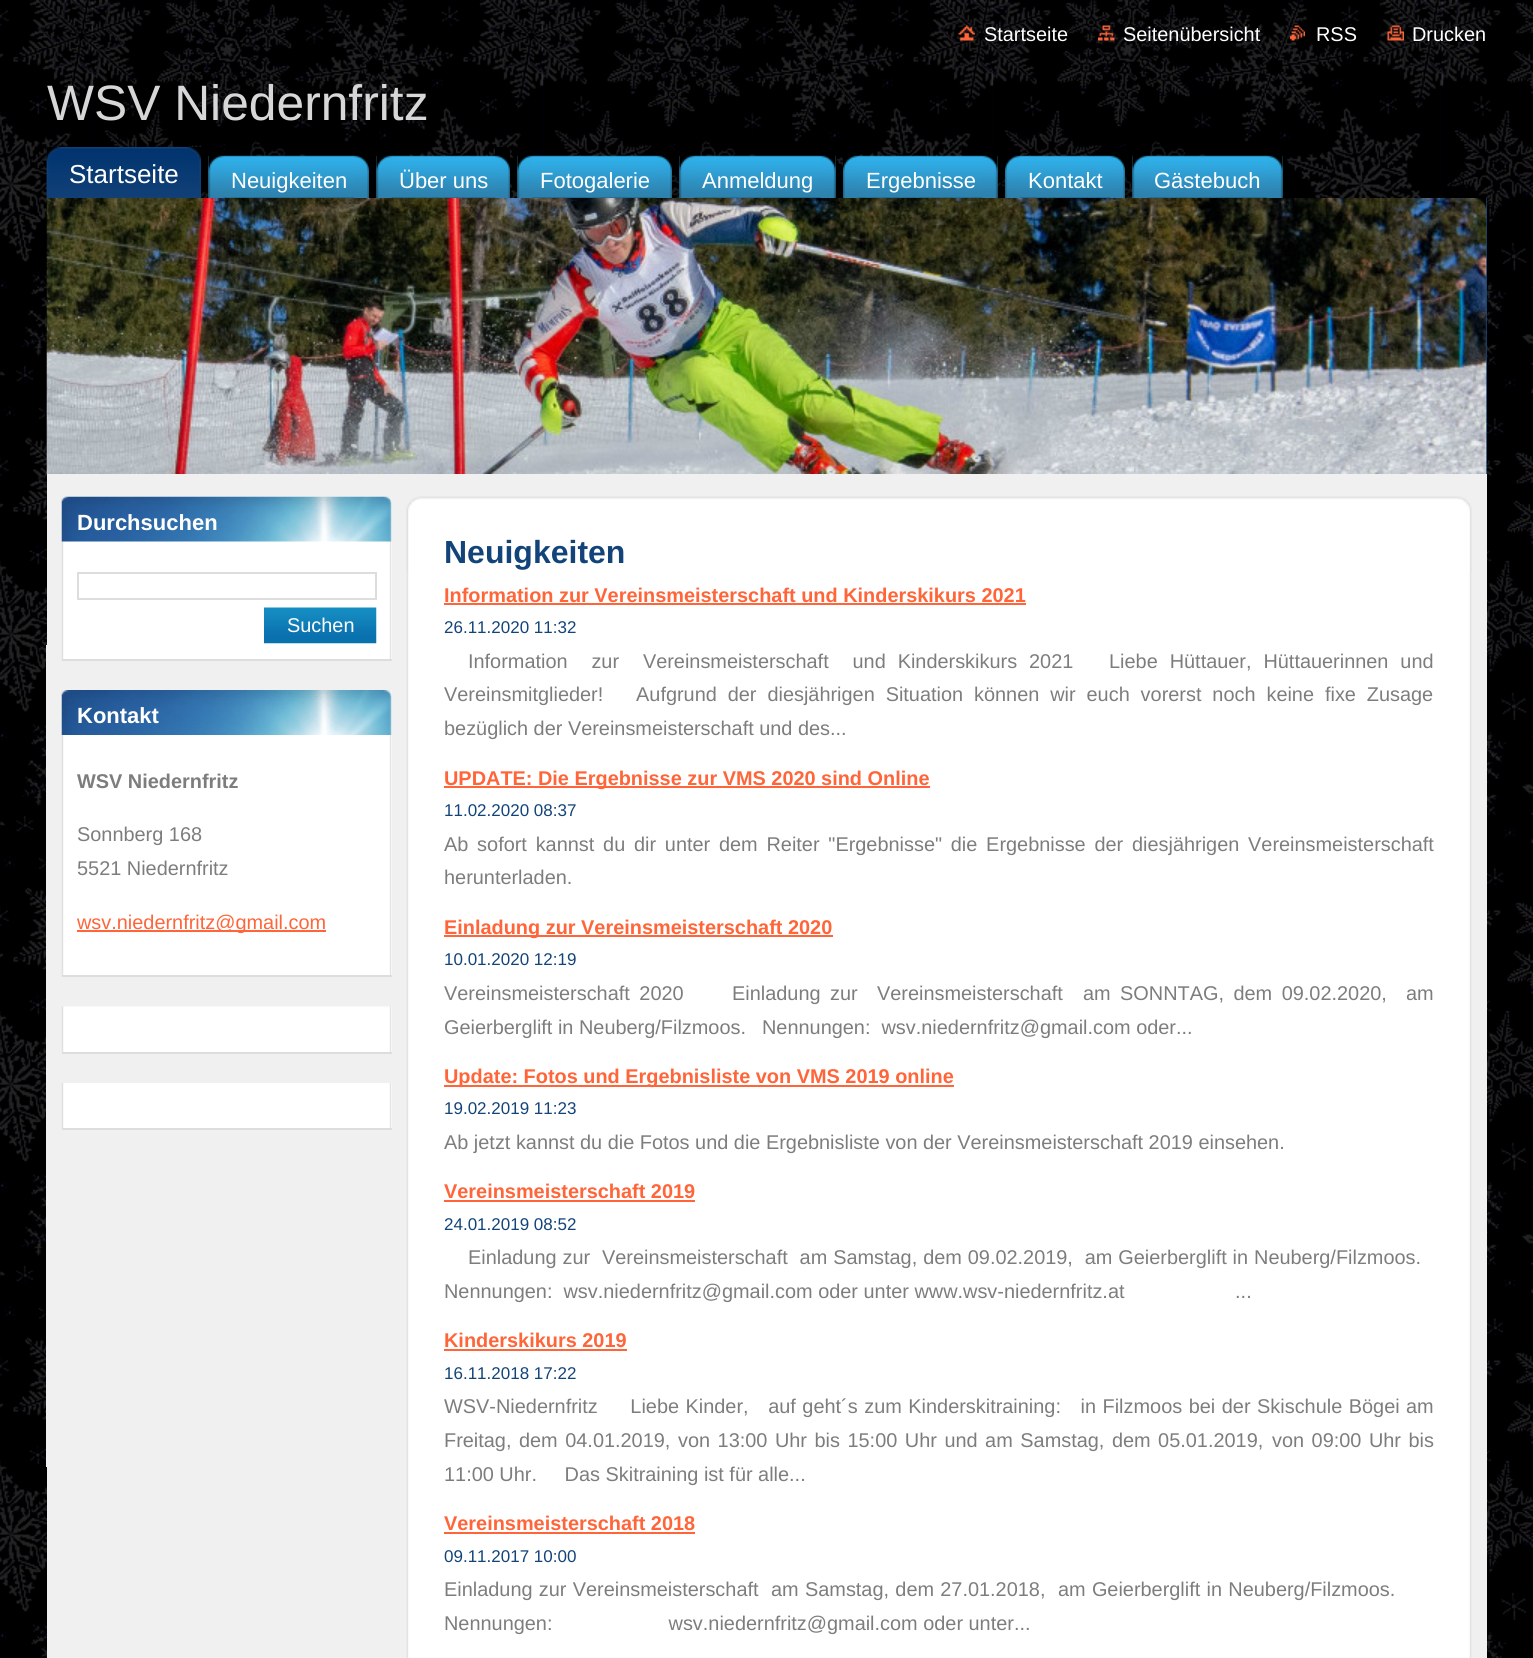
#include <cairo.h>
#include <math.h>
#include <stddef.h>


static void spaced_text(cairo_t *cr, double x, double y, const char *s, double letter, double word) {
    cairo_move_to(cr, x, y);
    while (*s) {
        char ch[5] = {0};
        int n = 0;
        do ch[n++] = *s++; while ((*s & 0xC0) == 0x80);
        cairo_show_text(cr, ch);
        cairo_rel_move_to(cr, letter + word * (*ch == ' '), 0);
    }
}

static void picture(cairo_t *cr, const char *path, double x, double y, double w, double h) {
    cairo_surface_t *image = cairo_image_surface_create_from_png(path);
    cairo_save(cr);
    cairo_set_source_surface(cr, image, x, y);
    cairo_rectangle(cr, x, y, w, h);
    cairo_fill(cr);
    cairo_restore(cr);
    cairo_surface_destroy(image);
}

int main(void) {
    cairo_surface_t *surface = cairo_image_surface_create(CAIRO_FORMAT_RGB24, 1533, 1658);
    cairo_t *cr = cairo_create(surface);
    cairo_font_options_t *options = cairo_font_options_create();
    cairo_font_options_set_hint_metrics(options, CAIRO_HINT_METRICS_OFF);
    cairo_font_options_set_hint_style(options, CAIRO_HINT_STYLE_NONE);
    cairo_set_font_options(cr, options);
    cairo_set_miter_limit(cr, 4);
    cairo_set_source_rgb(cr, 1, 1, 1);
    cairo_paint(cr);
    picture(cr, "img1.png", 0, 0, 1533, 1658);
    cairo_set_source_rgb(cr, 0.941, 0.941, 0.941);
    cairo_rectangle(cr, 46, 645, 1, 822);
    cairo_fill(cr);
    picture(cr, "img2.png", 958, 25, 17, 16);
    cairo_select_font_face(cr, "Liberation Sans", CAIRO_FONT_SLANT_NORMAL, CAIRO_FONT_WEIGHT_NORMAL);
    cairo_set_font_size(cr, 19.9);
    cairo_set_source_rgb(cr, 1, 1, 1);
    cairo_move_to(cr, 984, 41);
    cairo_show_text(cr, "Startseite");
    picture(cr, "img3.png", 1098, 25, 17, 16);
    cairo_move_to(cr, 1123, 41);
    cairo_show_text(cr, "Seitenübersicht");
    picture(cr, "img4.png", 1290, 25, 15, 16);
    cairo_move_to(cr, 1316, 41);
    cairo_show_text(cr, "RSS");
    picture(cr, "img5.png", 1387, 25, 17, 16);
    cairo_move_to(cr, 1412, 41);
    cairo_show_text(cr, "Drucken");
    cairo_set_font_size(cr, 49.75);
    cairo_set_source_rgb(cr, 0.843, 0.843, 0.843);
    cairo_move_to(cr, 47, 120);
    cairo_show_text(cr, "WSV Niedernfritz");
    picture(cr, "img6.png", 46, 147, 155, 51);
    picture(cr, "img7.png", 46, 147, 15, 51);
    picture(cr, "img8.png", 187, 147, 14, 36);
    cairo_set_font_size(cr, 26);
    cairo_set_source_rgb(cr, 1, 1, 1);
    cairo_move_to(cr, 69, 183);
    cairo_show_text(cr, "Startseite");
    picture(cr, "img9.png", 208, 155, 146, 43);
    picture(cr, "img10.png", 208, 147, 16, 51);
    picture(cr, "img11.png", 354, 155, 15, 43);
    cairo_set_font_size(cr, 22);
    cairo_move_to(cr, 231, 188);
    cairo_show_text(cr, "Neuigkeiten");
    picture(cr, "img12.png", 376, 155, 119, 43);
    picture(cr, "img13.png", 376, 155, 16, 43);
    picture(cr, "img14.png", 495, 147, 15, 51);
    cairo_move_to(cr, 399, 188);
    cairo_show_text(cr, "Über uns");
    picture(cr, "img15.png", 517, 155, 140, 43);
    picture(cr, "img16.png", 517, 155, 16, 43);
    picture(cr, "img17.png", 657, 147, 15, 51);
    cairo_move_to(cr, 540, 188);
    cairo_show_text(cr, "Fotogalerie");
    picture(cr, "img18.png", 679, 155, 157, 43);
    picture(cr, "img19.png", 679, 155, 16, 43);
    picture(cr, "img20.png", 820, 155, 16, 43);
    cairo_move_to(cr, 702, 188);
    cairo_show_text(cr, "Anmeldung");
    picture(cr, "img21.png", 858, 155, 140, 43);
    picture(cr, "img22.png", 843, 155, 15, 43);
    picture(cr, "img23.png", 982, 147, 16, 51);
    cairo_move_to(cr, 866, 188);
    cairo_show_text(cr, "Ergebnisse");
    picture(cr, "img24.png", 1020, 155, 90, 43);
    picture(cr, "img25.png", 1005, 147, 15, 51);
    picture(cr, "img14.png", 1110, 147, 15, 51);
    cairo_move_to(cr, 1028, 188);
    cairo_show_text(cr, "Kontakt");
    picture(cr, "img26.png", 1132, 155, 151, 43);
    picture(cr, "img27.png", 1132, 155, 16, 43);
    picture(cr, "img20.png", 1267, 155, 16, 43);
    cairo_move_to(cr, 1154, 188);
    cairo_show_text(cr, "Gästebuch");
    cairo_set_source_rgb(cr, 0.075, 0.267, 0.475);
    cairo_rectangle(cr, 1486, 198, 1, 276);
    cairo_fill(cr);
    picture(cr, "img28.png", 46, 198, 1441, 276);
    picture(cr, "img29.png", 1474, 198, 13, 12);
    cairo_set_source_rgb(cr, 0.941, 0.941, 0.941);
    cairo_rectangle(cr, 47, 474, 1440, 1184);
    cairo_fill(cr);
    cairo_set_source_rgb(cr, 1, 1, 1);
    cairo_rectangle(cr, 391, 497, 1, 162);
    cairo_fill(cr);
    picture(cr, "img30.png", 61, 497, 331, 163);
    cairo_set_source_rgb(cr, 0.867, 0.867, 0.867);
    cairo_rectangle(cr, 62, 659, 330, 2);
    cairo_fill(cr);
    picture(cr, "img31.png", 61, 496, 331, 46);
    cairo_select_font_face(cr, "Liberation Sans", CAIRO_FONT_SLANT_NORMAL, CAIRO_FONT_WEIGHT_BOLD);
    cairo_set_source_rgb(cr, 1, 1, 1);
    cairo_move_to(cr, 77, 530);
    cairo_show_text(cr, "Durchsuchen");
    cairo_rectangle(cr, 78, 573, 298, 26);
    cairo_set_source_rgb(cr, 0.867, 0.867, 0.867);
    cairo_stroke(cr);
    picture(cr, "img32.png", 264, 607, 113, 37);
    cairo_select_font_face(cr, "Liberation Sans", CAIRO_FONT_SLANT_NORMAL, CAIRO_FONT_WEIGHT_NORMAL);
    cairo_set_font_size(cr, 19.9);
    cairo_set_source_rgb(cr, 1, 1, 1);
    cairo_move_to(cr, 287, 632);
    cairo_show_text(cr, "Suchen");
    cairo_rectangle(cr, 391, 690, 1, 285);
    cairo_fill(cr);
    picture(cr, "img33.png", 61, 690, 331, 287);
    cairo_set_source_rgb(cr, 0.867, 0.867, 0.867);
    cairo_rectangle(cr, 62, 975, 330, 2);
    cairo_fill(cr);
    picture(cr, "img34.png", 61, 690, 331, 45);
    cairo_select_font_face(cr, "Liberation Sans", CAIRO_FONT_SLANT_NORMAL, CAIRO_FONT_WEIGHT_BOLD);
    cairo_set_font_size(cr, 22);
    cairo_set_source_rgb(cr, 1, 1, 1);
    cairo_move_to(cr, 77, 723);
    cairo_show_text(cr, "Kontakt");
    cairo_set_font_size(cr, 19.9);
    cairo_set_source_rgb(cr, 0.49, 0.49, 0.49);
    cairo_move_to(cr, 77, 788);
    cairo_show_text(cr, "WSV Niedernfritz");
    cairo_select_font_face(cr, "Liberation Sans", CAIRO_FONT_SLANT_NORMAL, CAIRO_FONT_WEIGHT_NORMAL);
    cairo_move_to(cr, 77, 841);
    cairo_show_text(cr, "Sonnberg 168");
    cairo_move_to(cr, 77, 875);
    cairo_show_text(cr, "5521 Niedernfritz");
    cairo_set_source_rgb(cr, 1, 0.396, 0.224);
    cairo_rectangle(cr, 77, 930, 249, 2);
    cairo_fill(cr);
    cairo_move_to(cr, 77, 929);
    cairo_show_text(cr, "wsv.niedernfritz@gmail.com");
    cairo_set_source_rgb(cr, 1, 1, 1);
    cairo_rectangle(cr, 391, 1007, 1, 45);
    cairo_fill(cr);
    picture(cr, "img35.png", 61, 1006, 331, 47);
    cairo_set_source_rgb(cr, 0.867, 0.867, 0.867);
    cairo_rectangle(cr, 62, 1052, 330, 2);
    cairo_fill(cr);
    cairo_set_source_rgb(cr, 1, 1, 1);
    cairo_rectangle(cr, 391, 1083, 1, 45);
    cairo_fill(cr);
    picture(cr, "img36.png", 61, 1083, 331, 47);
    cairo_set_source_rgb(cr, 0.867, 0.867, 0.867);
    cairo_rectangle(cr, 62, 1128, 330, 2);
    cairo_fill(cr);
    picture(cr, "img37.png", 406, 496, 1066, 76);
    picture(cr, "img38.png", 406, 571, 1066, 1087);
    cairo_select_font_face(cr, "Liberation Sans", CAIRO_FONT_SLANT_NORMAL, CAIRO_FONT_WEIGHT_BOLD);
    cairo_set_font_size(cr, 32);
    cairo_set_source_rgb(cr, 0.075, 0.267, 0.475);
    cairo_move_to(cr, 444, 563);
    cairo_show_text(cr, "Neuigkeiten");
    cairo_set_font_size(cr, 19.9);
    cairo_set_source_rgb(cr, 1, 0.396, 0.224);
    cairo_move_to(cr, 444, 602);
    cairo_show_text(cr, "Information zur Vereinsmeisterschaft und Kinderskikurs 2021");
    cairo_rectangle(cr, 444, 603, 582, 2);
    cairo_fill(cr);
    cairo_select_font_face(cr, "Liberation Sans", CAIRO_FONT_SLANT_NORMAL, CAIRO_FONT_WEIGHT_NORMAL);
    cairo_set_font_size(cr, 17);
    cairo_set_source_rgb(cr, 0.075, 0.267, 0.475);
    cairo_move_to(cr, 444, 633);
    cairo_show_text(cr, "26.11.2020 11:32");
    cairo_set_font_size(cr, 19.9);
    cairo_set_source_rgb(cr, 0.49, 0.49, 0.49);
    spaced_text(cr, 468, 668, "Information  zur  Vereinsmeisterschaft  und Kinderskikurs 2021   Liebe Hüttauer, Hüttauerinnen und", 0, 6.4);
    spaced_text(cr, 444, 701, "Vereinsmitglieder!   Aufgrund der diesjährigen Situation können wir euch vorerst noch keine fixe Zusage", 0, 5.4);
    cairo_move_to(cr, 444, 735);
    cairo_show_text(cr, "bezüglich der Vereinsmeisterschaft und des...");
    cairo_set_source_rgb(cr, 1, 0.396, 0.224);
    cairo_rectangle(cr, 444, 786, 486, 2);
    cairo_fill(cr);
    cairo_select_font_face(cr, "Liberation Sans", CAIRO_FONT_SLANT_NORMAL, CAIRO_FONT_WEIGHT_BOLD);
    cairo_move_to(cr, 444, 785);
    cairo_show_text(cr, "UPDATE: Die Ergebnisse zur VMS 2020 sind Online");
    cairo_select_font_face(cr, "Liberation Sans", CAIRO_FONT_SLANT_NORMAL, CAIRO_FONT_WEIGHT_NORMAL);
    cairo_set_font_size(cr, 17);
    cairo_set_source_rgb(cr, 0.075, 0.267, 0.475);
    cairo_move_to(cr, 444, 816);
    cairo_show_text(cr, "11.02.2020 08:37");
    cairo_set_font_size(cr, 19.9);
    cairo_set_source_rgb(cr, 0.49, 0.49, 0.49);
    spaced_text(cr, 444, 851, "Ab sofort kannst du dir unter dem Reiter \"Ergebnisse\" die Ergebnisse der diesjährigen Vereinsmeisterschaft", 0, 3.25);
    cairo_move_to(cr, 444, 884);
    cairo_show_text(cr, "herunterladen.");
    cairo_set_source_rgb(cr, 1, 0.396, 0.224);
    cairo_rectangle(cr, 444, 935, 389, 2);
    cairo_fill(cr);
    cairo_select_font_face(cr, "Liberation Sans", CAIRO_FONT_SLANT_NORMAL, CAIRO_FONT_WEIGHT_BOLD);
    cairo_move_to(cr, 444, 934);
    cairo_show_text(cr, "Einladung zur Vereinsmeisterschaft 2020");
    cairo_select_font_face(cr, "Liberation Sans", CAIRO_FONT_SLANT_NORMAL, CAIRO_FONT_WEIGHT_NORMAL);
    cairo_set_font_size(cr, 17);
    cairo_set_source_rgb(cr, 0.075, 0.267, 0.475);
    cairo_move_to(cr, 444, 965);
    cairo_show_text(cr, "10.01.2020 12:19");
    cairo_set_font_size(cr, 19.9);
    cairo_set_source_rgb(cr, 0.49, 0.49, 0.49);
    spaced_text(cr, 444, 1000, "Vereinsmeisterschaft 2020", 0, 4);
    cairo_move_to(cr, 732, 1000);
    cairo_show_text(cr, "Einladung");
    cairo_move_to(cr, 830, 1000);
    cairo_show_text(cr, "zur");
    cairo_move_to(cr, 877, 1000);
    cairo_show_text(cr, "Vereinsmeisterschaft");
    cairo_move_to(cr, 1083, 1000);
    cairo_show_text(cr, "am");
    spaced_text(cr, 1120, 1000, "SONNTAG, dem 09.02.2020,", 0, 4);
    cairo_move_to(cr, 1406, 1000);
    cairo_show_text(cr, "am");
    cairo_move_to(cr, 444, 1034);
    cairo_show_text(cr, "Geierberglift in Neuberg/Filzmoos.");
    cairo_move_to(cr, 762, 1034);
    cairo_show_text(cr, "Nennungen:  wsv.niedernfritz@gmail.com oder...");
    cairo_set_source_rgb(cr, 1, 0.396, 0.224);
    cairo_rectangle(cr, 444, 1085, 510, 2);
    cairo_fill(cr);
    cairo_select_font_face(cr, "Liberation Sans", CAIRO_FONT_SLANT_NORMAL, CAIRO_FONT_WEIGHT_BOLD);
    cairo_move_to(cr, 444, 1083);
    cairo_show_text(cr, "Update: Fotos und Ergebnisliste von VMS 2019 online");
    cairo_select_font_face(cr, "Liberation Sans", CAIRO_FONT_SLANT_NORMAL, CAIRO_FONT_WEIGHT_NORMAL);
    cairo_set_font_size(cr, 17);
    cairo_set_source_rgb(cr, 0.075, 0.267, 0.475);
    cairo_move_to(cr, 444, 1114);
    cairo_show_text(cr, "19.02.2019 11:23");
    cairo_set_font_size(cr, 19.9);
    cairo_set_source_rgb(cr, 0.49, 0.49, 0.49);
    cairo_move_to(cr, 444, 1149);
    cairo_show_text(cr, "Ab jetzt kannst du die Fotos und die Ergebnisliste von der Vereinsmeisterschaft 2019 einsehen.");
    cairo_select_font_face(cr, "Liberation Sans", CAIRO_FONT_SLANT_NORMAL, CAIRO_FONT_WEIGHT_BOLD);
    cairo_set_source_rgb(cr, 1, 0.396, 0.224);
    cairo_move_to(cr, 444, 1198);
    cairo_show_text(cr, "Vereinsmeisterschaft 2019");
    cairo_rectangle(cr, 444, 1200, 251, 2);
    cairo_fill(cr);
    cairo_select_font_face(cr, "Liberation Sans", CAIRO_FONT_SLANT_NORMAL, CAIRO_FONT_WEIGHT_NORMAL);
    cairo_set_font_size(cr, 17);
    cairo_set_source_rgb(cr, 0.075, 0.267, 0.475);
    cairo_move_to(cr, 444, 1230);
    cairo_show_text(cr, "24.01.2019 08:52");
    cairo_set_font_size(cr, 19.9);
    cairo_set_source_rgb(cr, 0.49, 0.49, 0.49);
    spaced_text(cr, 468, 1264, "Einladung zur  Vereinsmeisterschaft  am Samstag, dem 09.02.2019,  am Geierberglift in Neuberg/Filzmoos.", 0, 0.4);
    cairo_move_to(cr, 444, 1298);
    cairo_show_text(cr, "Nennungen:  wsv.niedernfritz@gmail.com oder unter www.wsv-niedernfritz.at                    ...");
    cairo_select_font_face(cr, "Liberation Sans", CAIRO_FONT_SLANT_NORMAL, CAIRO_FONT_WEIGHT_BOLD);
    cairo_set_source_rgb(cr, 1, 0.396, 0.224);
    cairo_move_to(cr, 444, 1347);
    cairo_show_text(cr, "Kinderskikurs 2019");
    cairo_rectangle(cr, 444, 1349, 183, 2);
    cairo_fill(cr);
    cairo_select_font_face(cr, "Liberation Sans", CAIRO_FONT_SLANT_NORMAL, CAIRO_FONT_WEIGHT_NORMAL);
    cairo_set_font_size(cr, 17);
    cairo_set_source_rgb(cr, 0.075, 0.267, 0.475);
    cairo_move_to(cr, 444, 1379);
    cairo_show_text(cr, "16.11.2018 17:22");
    cairo_set_font_size(cr, 19.9);
    cairo_set_source_rgb(cr, 0.49, 0.49, 0.49);
    spaced_text(cr, 444, 1413, "WSV-Niedernfritz     Liebe Kinder,   auf geht´s zum Kinderskitraining:   in Filzmoos bei der Skischule Bögei", 0, 1);
    cairo_move_to(cr, 1406, 1413);
    cairo_show_text(cr, "am");
    spaced_text(cr, 444, 1447, "Freitag, dem 04.01.2019,", 0, 2);
    spaced_text(cr, 678, 1447, "von 13:00 Uhr bis 15:00 Uhr und am Samstag, dem 05.01.2019,", 0, 2);
    spaced_text(cr, 1272, 1447, "von 09:00 Uhr bis", 0, 2);
    cairo_move_to(cr, 444, 1481);
    cairo_show_text(cr, "11:00 Uhr.     Das Skitraining ist für alle...");
    cairo_select_font_face(cr, "Liberation Sans", CAIRO_FONT_SLANT_NORMAL, CAIRO_FONT_WEIGHT_BOLD);
    cairo_set_source_rgb(cr, 1, 0.396, 0.224);
    cairo_move_to(cr, 444, 1530);
    cairo_show_text(cr, "Vereinsmeisterschaft 2018");
    cairo_rectangle(cr, 444, 1532, 251, 2);
    cairo_fill(cr);
    cairo_select_font_face(cr, "Liberation Sans", CAIRO_FONT_SLANT_NORMAL, CAIRO_FONT_WEIGHT_NORMAL);
    cairo_set_font_size(cr, 17);
    cairo_set_source_rgb(cr, 0.075, 0.267, 0.475);
    cairo_move_to(cr, 444, 1562);
    cairo_show_text(cr, "09.11.2017 10:00");
    cairo_set_font_size(cr, 19.9);
    cairo_set_source_rgb(cr, 0.49, 0.49, 0.49);
    spaced_text(cr, 444, 1596, "Einladung zur Vereinsmeisterschaft  am Samstag, dem 27.01.2018,  am Geierberglift in Neuberg/Filzmoos.", 0, 0.75);
    cairo_move_to(cr, 444, 1630);
    cairo_show_text(cr, "Nennungen:                     wsv.niedernfritz@gmail.com oder unter...");
    cairo_surface_write_to_png(surface, "page.png");
    cairo_font_options_destroy(options);
    cairo_destroy(cr);
    cairo_surface_destroy(surface);
    return 0;
}
